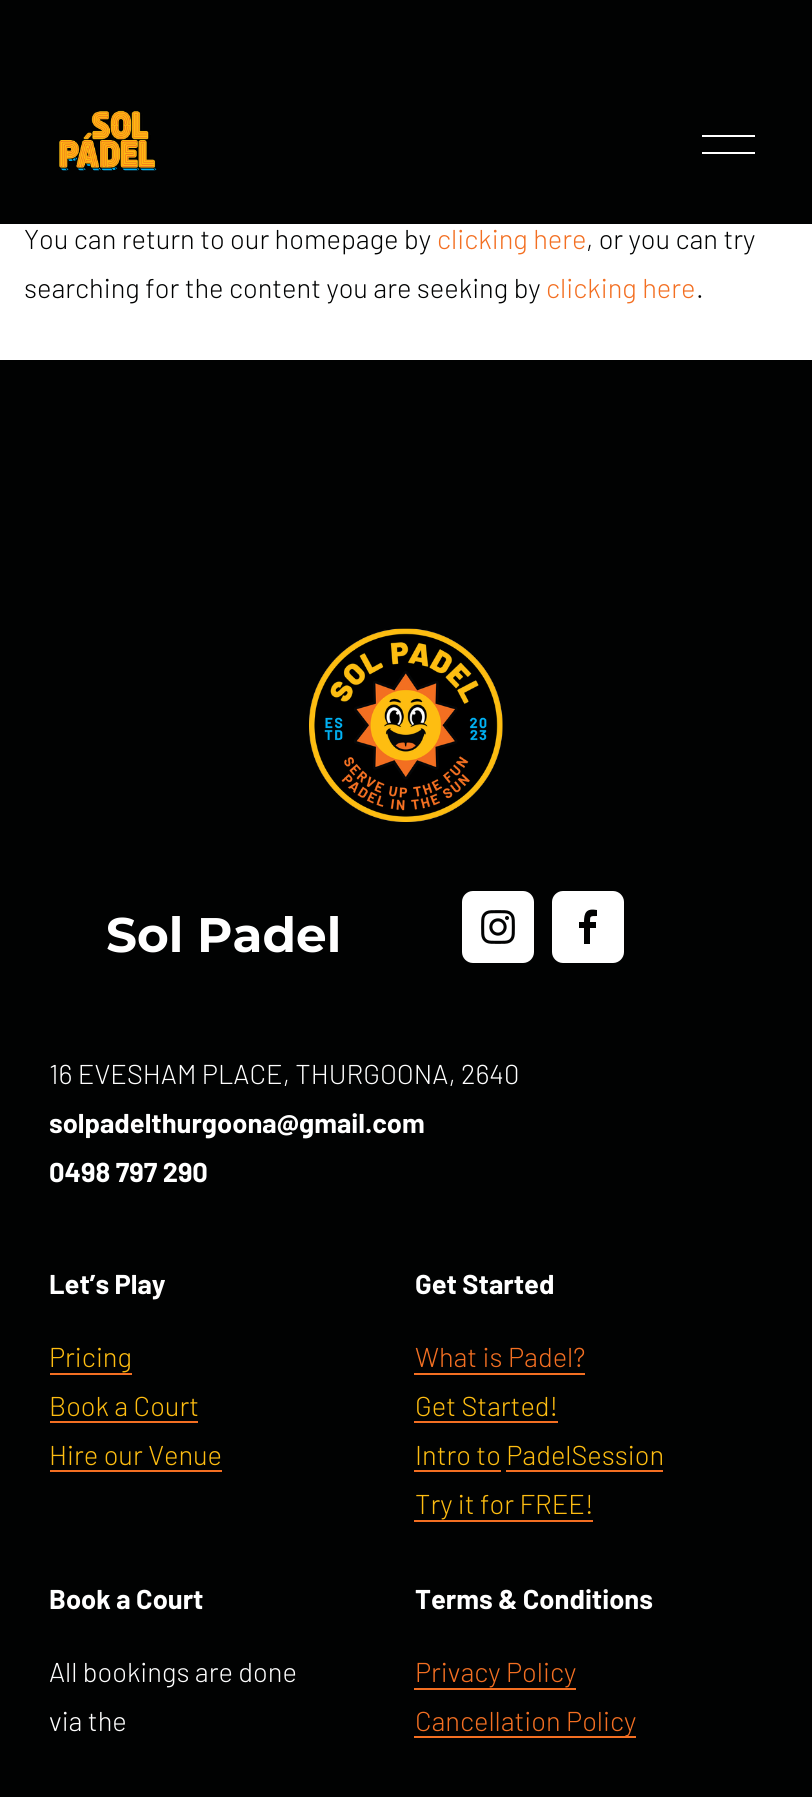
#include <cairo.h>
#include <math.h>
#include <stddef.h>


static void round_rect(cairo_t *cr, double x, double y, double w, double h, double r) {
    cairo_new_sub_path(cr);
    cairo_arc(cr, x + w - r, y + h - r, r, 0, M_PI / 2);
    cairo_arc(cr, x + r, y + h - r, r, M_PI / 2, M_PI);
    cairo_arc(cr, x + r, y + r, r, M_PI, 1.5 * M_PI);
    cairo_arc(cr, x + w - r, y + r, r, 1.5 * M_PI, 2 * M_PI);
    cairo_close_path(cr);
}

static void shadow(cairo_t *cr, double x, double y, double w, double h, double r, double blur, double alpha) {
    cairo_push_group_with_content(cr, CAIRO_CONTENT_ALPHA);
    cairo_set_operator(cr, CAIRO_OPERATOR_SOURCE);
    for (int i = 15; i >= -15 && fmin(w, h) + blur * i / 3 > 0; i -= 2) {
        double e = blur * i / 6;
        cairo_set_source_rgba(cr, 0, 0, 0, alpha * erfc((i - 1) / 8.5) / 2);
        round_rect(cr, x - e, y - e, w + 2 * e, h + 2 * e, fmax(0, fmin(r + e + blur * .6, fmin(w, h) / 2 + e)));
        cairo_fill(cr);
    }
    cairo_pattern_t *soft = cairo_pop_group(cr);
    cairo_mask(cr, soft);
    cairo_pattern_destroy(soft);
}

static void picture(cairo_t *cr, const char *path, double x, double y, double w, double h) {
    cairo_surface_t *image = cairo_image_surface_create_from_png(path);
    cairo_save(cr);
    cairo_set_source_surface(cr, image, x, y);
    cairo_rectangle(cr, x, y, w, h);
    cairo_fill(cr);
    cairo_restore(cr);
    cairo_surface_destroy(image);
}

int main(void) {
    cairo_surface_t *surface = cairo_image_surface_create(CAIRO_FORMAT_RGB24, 812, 1797);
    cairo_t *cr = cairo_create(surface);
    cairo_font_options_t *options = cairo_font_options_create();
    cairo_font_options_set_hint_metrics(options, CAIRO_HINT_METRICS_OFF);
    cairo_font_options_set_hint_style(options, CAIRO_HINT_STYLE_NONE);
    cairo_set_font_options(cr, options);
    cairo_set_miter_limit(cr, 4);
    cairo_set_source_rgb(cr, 1, 1, 1);
    cairo_paint(cr);
    cairo_set_source_rgb(cr, 0.004, 0.008, 0.008);
    cairo_rectangle(cr, 0, 0, 812, 218);
    cairo_fill(cr);
    cairo_save(cr);
    cairo_rectangle(cr, 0, 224, 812, 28);
    cairo_clip(cr);
    cairo_set_source_rgb(cr, 1, 1, 1);
    shadow(cr, 0, 81, 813, 161, 0, 9, 0.15);
    cairo_restore(cr);
    cairo_rectangle(cr, 3, 66, 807, 155);
    cairo_set_line_width(cr, 6);
    cairo_stroke(cr);
    picture(cr, "img1.png", 59, 110, 98, 61);
    cairo_set_source_rgb(cr, 1, 1, 1);
    cairo_rectangle(cr, 702, 135, 53, 2);
    cairo_fill(cr);
    cairo_rectangle(cr, 702, 152, 53, 2);
    cairo_fill(cr);
    cairo_select_font_face(cr, "Barlow Light", CAIRO_FONT_SLANT_NORMAL, CAIRO_FONT_WEIGHT_NORMAL);
    cairo_set_font_size(cr, 27.25);
    cairo_set_source_rgb(cr, 0.004, 0.008, 0.008);
    cairo_move_to(cr, 24, 249);
    cairo_show_text(cr, "You can return to our homepage by");
    cairo_set_source_rgb(cr, 0.953, 0.435, 0.133);
    cairo_move_to(cr, 437, 249);
    cairo_show_text(cr, "clicking here");
    cairo_set_source_rgb(cr, 0.004, 0.008, 0.008);
    cairo_move_to(cr, 586, 249);
    cairo_show_text(cr, ", or you can try");
    cairo_move_to(cr, 24, 298);
    cairo_show_text(cr, "searching for the content you are seeking by");
    cairo_set_source_rgb(cr, 0.953, 0.435, 0.133);
    cairo_move_to(cr, 546, 298);
    cairo_show_text(cr, "clicking here");
    cairo_set_source_rgb(cr, 0.004, 0.008, 0.008);
    cairo_move_to(cr, 696, 298);
    cairo_show_text(cr, ".");
    cairo_rectangle(cr, 0, 360, 812, 1437);
    cairo_fill(cr);
    picture(cr, "img2.png", 309, 628, 194, 194);
    cairo_select_font_face(cr, "Montserrat", CAIRO_FONT_SLANT_NORMAL, CAIRO_FONT_WEIGHT_BOLD);
    cairo_set_font_size(cr, 48.5);
    cairo_set_source_rgb(cr, 1, 1, 1);
    cairo_move_to(cr, 106, 952);
    cairo_show_text(cr, "Sol Padel");
    picture(cr, "img3.png", 462, 891, 72, 72);
    cairo_set_fill_rule(cr, CAIRO_FILL_RULE_EVEN_ODD);
    cairo_new_path(cr);
    cairo_move_to(cr, 563, 891);
    cairo_curve_to(cr, 557, 891, 552, 896, 552, 902);
    cairo_line_to(cr, 552, 952);
    cairo_curve_to(cr, 552, 958, 557, 963, 563, 963);
    cairo_line_to(cr, 613, 963);
    cairo_curve_to(cr, 619, 963, 624, 958, 624, 952);
    cairo_line_to(cr, 624, 902);
    cairo_curve_to(cr, 624, 896, 619, 891, 613, 891);
    cairo_close_path(cr);
    cairo_move_to(cr, 597, 916);
    cairo_line_to(cr, 597, 910);
    cairo_curve_to(cr, 586, 908, 584, 913, 584, 922);
    cairo_line_to(cr, 579, 922);
    cairo_line_to(cr, 579, 928);
    cairo_line_to(cr, 584, 928);
    cairo_line_to(cr, 584, 944);
    cairo_line_to(cr, 590, 944);
    cairo_line_to(cr, 590, 928);
    cairo_line_to(cr, 596, 928);
    cairo_line_to(cr, 596, 922);
    cairo_line_to(cr, 590, 922);
    cairo_curve_to(cr, 590, 916, 590, 916, 597, 916);
    cairo_close_path(cr);
    cairo_fill(cr);
    cairo_select_font_face(cr, "Barlow Light", CAIRO_FONT_SLANT_NORMAL, CAIRO_FONT_WEIGHT_NORMAL);
    cairo_set_font_size(cr, 27.25);
    cairo_move_to(cr, 49, 1084);
    cairo_show_text(cr, "16 EVESHAM PLACE, THURGOONA, 2640");
    cairo_select_font_face(cr, "Barlow", CAIRO_FONT_SLANT_NORMAL, CAIRO_FONT_WEIGHT_BOLD);
    cairo_move_to(cr, 49, 1133);
    cairo_show_text(cr, "solpadelthurgoona@gmail.com");
    cairo_move_to(cr, 49, 1182);
    cairo_show_text(cr, "0498 797 290");
    cairo_move_to(cr, 49, 1294);
    cairo_show_text(cr, "Let’s Play");
    cairo_select_font_face(cr, "Barlow Light", CAIRO_FONT_SLANT_NORMAL, CAIRO_FONT_WEIGHT_NORMAL);
    cairo_set_source_rgb(cr, 0.996, 0.741, 0.067);
    cairo_move_to(cr, 49, 1367);
    cairo_show_text(cr, "Pricing");
    cairo_set_source_rgb(cr, 0.953, 0.435, 0.133);
    cairo_rectangle(cr, 50, 1373, 82, 2);
    cairo_fill(cr);
    cairo_set_source_rgb(cr, 0.996, 0.741, 0.067);
    cairo_move_to(cr, 49, 1416);
    cairo_show_text(cr, "Book a Court");
    cairo_set_source_rgb(cr, 0.953, 0.435, 0.133);
    cairo_rectangle(cr, 50, 1421, 148, 2);
    cairo_fill(cr);
    cairo_set_source_rgb(cr, 0.996, 0.741, 0.067);
    cairo_move_to(cr, 49, 1465);
    cairo_show_text(cr, "Hire our Venue");
    cairo_set_source_rgb(cr, 0.953, 0.435, 0.133);
    cairo_rectangle(cr, 50, 1470, 172, 2);
    cairo_fill(cr);
    cairo_select_font_face(cr, "Barlow", CAIRO_FONT_SLANT_NORMAL, CAIRO_FONT_WEIGHT_BOLD);
    cairo_set_source_rgb(cr, 1, 1, 1);
    cairo_move_to(cr, 415, 1294);
    cairo_show_text(cr, "Get Started");
    cairo_select_font_face(cr, "Barlow Light", CAIRO_FONT_SLANT_NORMAL, CAIRO_FONT_WEIGHT_NORMAL);
    cairo_set_source_rgb(cr, 0.953, 0.435, 0.133);
    cairo_move_to(cr, 415, 1367);
    cairo_show_text(cr, "What is Padel?");
    cairo_rectangle(cr, 414, 1373, 171, 2);
    cairo_fill(cr);
    cairo_set_source_rgb(cr, 0.996, 0.741, 0.067);
    cairo_move_to(cr, 415, 1416);
    cairo_show_text(cr, "Get Started!");
    cairo_set_source_rgb(cr, 0.953, 0.435, 0.133);
    cairo_rectangle(cr, 414, 1421, 144, 2);
    cairo_fill(cr);
    cairo_set_source_rgb(cr, 0.996, 0.741, 0.067);
    cairo_move_to(cr, 415, 1465);
    cairo_show_text(cr, "Intro to PadelSession");
    cairo_set_source_rgb(cr, 0.953, 0.435, 0.133);
    cairo_rectangle(cr, 414, 1470, 87, 2);
    cairo_fill(cr);
    cairo_rectangle(cr, 506, 1470, 157, 2);
    cairo_fill(cr);
    cairo_set_source_rgb(cr, 0.996, 0.741, 0.067);
    cairo_move_to(cr, 415, 1514);
    cairo_show_text(cr, "Try it for FREE!");
    cairo_set_source_rgb(cr, 0.953, 0.435, 0.133);
    cairo_rectangle(cr, 414, 1520, 179, 2);
    cairo_fill(cr);
    cairo_select_font_face(cr, "Barlow", CAIRO_FONT_SLANT_NORMAL, CAIRO_FONT_WEIGHT_BOLD);
    cairo_set_source_rgb(cr, 1, 1, 1);
    cairo_move_to(cr, 49, 1609);
    cairo_show_text(cr, "Book a Court");
    cairo_select_font_face(cr, "Barlow Light", CAIRO_FONT_SLANT_NORMAL, CAIRO_FONT_WEIGHT_NORMAL);
    cairo_move_to(cr, 49, 1682);
    cairo_show_text(cr, "All bookings are done");
    cairo_move_to(cr, 49, 1731);
    cairo_show_text(cr, "via the");
    cairo_select_font_face(cr, "Barlow", CAIRO_FONT_SLANT_NORMAL, CAIRO_FONT_WEIGHT_BOLD);
    cairo_move_to(cr, 415, 1609);
    cairo_show_text(cr, "Terms & Conditions");
    cairo_select_font_face(cr, "Barlow Light", CAIRO_FONT_SLANT_NORMAL, CAIRO_FONT_WEIGHT_NORMAL);
    cairo_set_source_rgb(cr, 0.953, 0.435, 0.133);
    cairo_move_to(cr, 415, 1682);
    cairo_show_text(cr, "Privacy Policy");
    cairo_rectangle(cr, 414, 1688, 162, 2);
    cairo_fill(cr);
    cairo_rectangle(cr, 414, 1736, 222, 2);
    cairo_fill(cr);
    cairo_move_to(cr, 415, 1731);
    cairo_show_text(cr, "Cancellation Policy");
    cairo_surface_write_to_png(surface, "page.png");
    cairo_font_options_destroy(options);
    cairo_destroy(cr);
    cairo_surface_destroy(surface);
    return 0;
}
